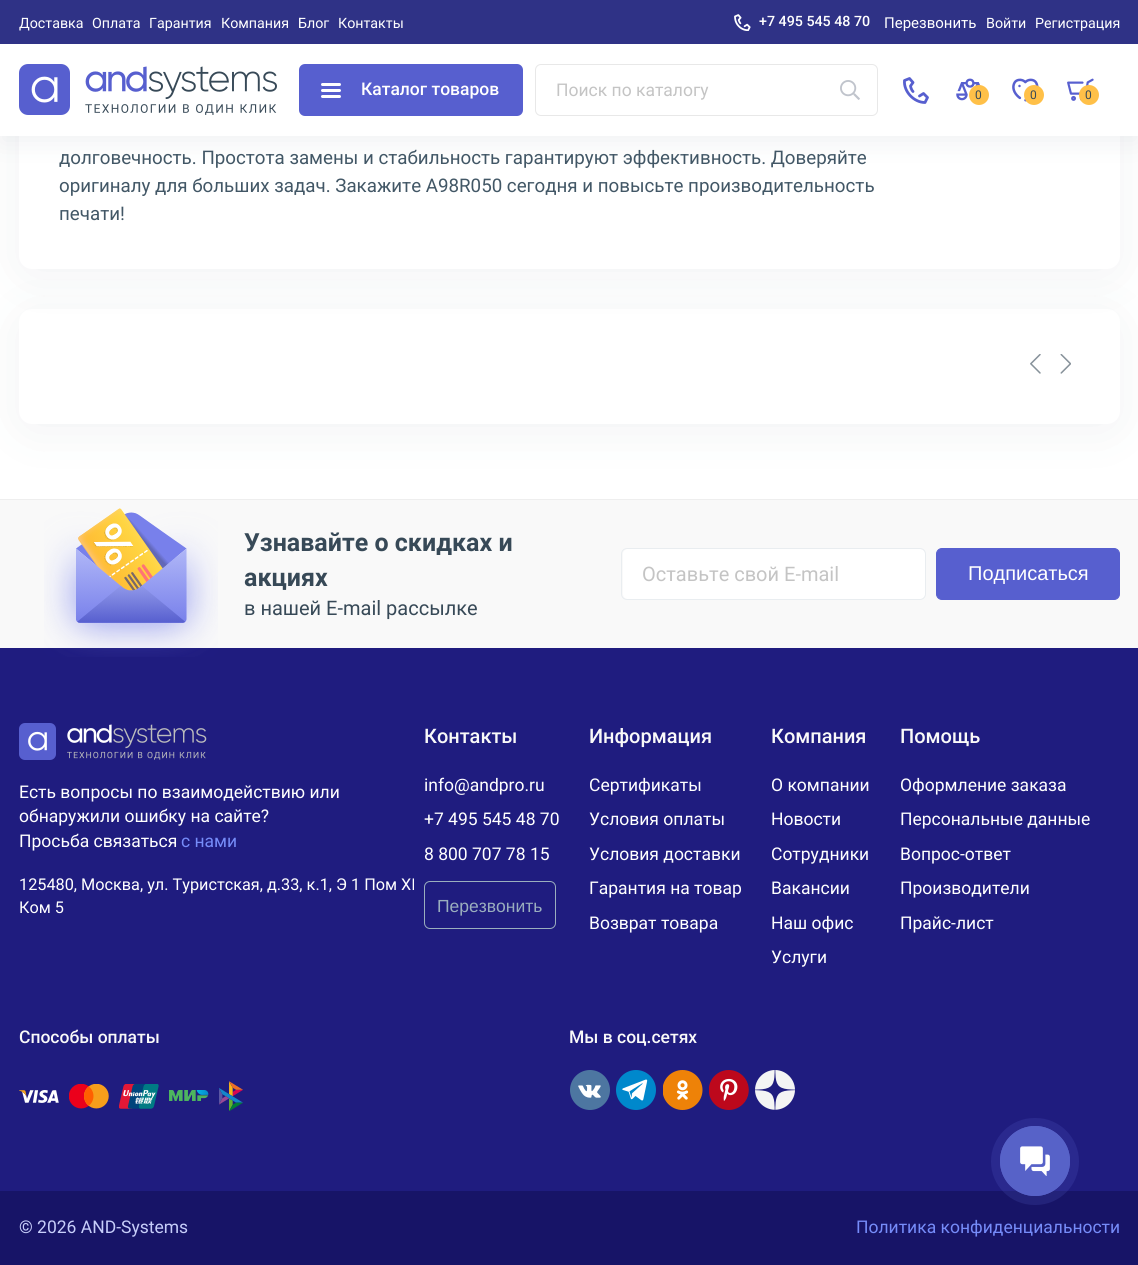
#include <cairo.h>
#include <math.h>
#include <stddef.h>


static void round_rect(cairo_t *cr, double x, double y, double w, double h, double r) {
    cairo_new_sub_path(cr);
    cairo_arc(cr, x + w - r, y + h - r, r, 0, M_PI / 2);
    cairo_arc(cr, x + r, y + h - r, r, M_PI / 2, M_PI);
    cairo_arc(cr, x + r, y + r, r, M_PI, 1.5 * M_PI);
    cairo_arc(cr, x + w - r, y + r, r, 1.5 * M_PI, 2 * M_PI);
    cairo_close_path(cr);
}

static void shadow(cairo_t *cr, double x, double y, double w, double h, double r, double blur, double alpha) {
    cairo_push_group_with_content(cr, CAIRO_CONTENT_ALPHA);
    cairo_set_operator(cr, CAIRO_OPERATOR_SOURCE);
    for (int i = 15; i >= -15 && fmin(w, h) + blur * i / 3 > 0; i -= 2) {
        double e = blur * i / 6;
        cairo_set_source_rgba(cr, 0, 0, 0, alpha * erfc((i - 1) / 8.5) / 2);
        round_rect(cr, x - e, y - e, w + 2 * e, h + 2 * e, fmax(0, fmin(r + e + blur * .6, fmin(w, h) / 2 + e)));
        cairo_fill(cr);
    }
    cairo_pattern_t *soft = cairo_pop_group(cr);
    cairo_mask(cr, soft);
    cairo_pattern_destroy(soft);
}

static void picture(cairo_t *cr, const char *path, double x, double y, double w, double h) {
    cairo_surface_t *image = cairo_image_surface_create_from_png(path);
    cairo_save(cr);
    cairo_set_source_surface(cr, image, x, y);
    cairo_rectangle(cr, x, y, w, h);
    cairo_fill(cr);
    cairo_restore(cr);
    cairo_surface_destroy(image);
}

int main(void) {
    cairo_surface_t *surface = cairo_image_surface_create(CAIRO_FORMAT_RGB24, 1138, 1265);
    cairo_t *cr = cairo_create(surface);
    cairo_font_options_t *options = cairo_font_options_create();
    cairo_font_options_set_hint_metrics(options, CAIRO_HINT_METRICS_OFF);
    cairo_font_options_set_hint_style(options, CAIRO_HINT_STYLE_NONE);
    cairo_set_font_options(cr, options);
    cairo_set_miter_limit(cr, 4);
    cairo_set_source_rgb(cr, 1, 1, 1);
    cairo_paint(cr);
    cairo_set_source_rgb(cr, 0.973, 0.973, 0.973);
    cairo_rectangle(cr, 0, 500, 1138, 148);
    cairo_fill(cr);
    cairo_set_source_rgb(cr, 0.933, 0.933, 0.933);
    cairo_rectangle(cr, 0, 499, 1138, 1);
    cairo_fill(cr);
    cairo_set_source_rgb(cr, 0.22, 0.271, 0.369);
    shadow(cr, 19, 316, 1101, 115, 13, 25, 0.07);
    cairo_set_source_rgb(cr, 1, 1, 1);
    round_rect(cr, 19, 309, 1101, 115, 13);
    cairo_fill(cr);
    cairo_set_source_rgb(cr, 0.22, 0.271, 0.369);
    shadow(cr, 19, -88, 1101, 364, 13, 25, 0.07);
    cairo_set_source_rgb(cr, 1, 1, 1);
    round_rect(cr, 19, -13, 1101, 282, 13);
    cairo_fill(cr);
    cairo_set_source_rgb(cr, 0.22, 0.271, 0.369);
    shadow(cr, 0, 51, 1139, 93, 0, 12.5, 0.07);
    cairo_set_source_rgb(cr, 0.184, 0.196, 0.525);
    cairo_rectangle(cr, 0, 0, 1138, 44);
    cairo_fill(cr);
    cairo_select_font_face(cr, "Roboto", CAIRO_FONT_SLANT_NORMAL, CAIRO_FONT_WEIGHT_NORMAL);
    cairo_set_font_size(cr, 14.25);
    cairo_set_source_rgb(cr, 1, 1, 1);
    cairo_move_to(cr, 19, 28);
    cairo_show_text(cr, "Доставка");
    cairo_move_to(cr, 92, 28);
    cairo_show_text(cr, "Оплата");
    cairo_move_to(cr, 149, 28);
    cairo_show_text(cr, "Гарантия");
    cairo_move_to(cr, 221, 28);
    cairo_show_text(cr, "Компания");
    cairo_move_to(cr, 298, 28);
    cairo_show_text(cr, "Блог");
    cairo_move_to(cr, 338, 28);
    cairo_show_text(cr, "Контакты");
    picture(cr, "img1.png", 734, 14, 17, 17);
    cairo_select_font_face(cr, "Roboto Medium", CAIRO_FONT_SLANT_NORMAL, CAIRO_FONT_WEIGHT_NORMAL);
    cairo_move_to(cr, 759, 26);
    cairo_show_text(cr, "+7 495 545 48 70");
    cairo_select_font_face(cr, "Roboto", CAIRO_FONT_SLANT_NORMAL, CAIRO_FONT_WEIGHT_NORMAL);
    cairo_set_font_size(cr, 15);
    cairo_move_to(cr, 884, 28);
    cairo_show_text(cr, "Перезвонить");
    cairo_set_font_size(cr, 14.25);
    cairo_move_to(cr, 986, 28);
    cairo_show_text(cr, "Войти");
    cairo_move_to(cr, 1035, 28);
    cairo_show_text(cr, "Регистрация");
    cairo_rectangle(cr, 0, 44, 1138, 92);
    cairo_fill(cr);
    picture(cr, "img2.png", 19, 64, 258, 51);
    cairo_set_source_rgb(cr, 0.341, 0.373, 0.812);
    round_rect(cr, 299, 64, 224, 52, 6);
    cairo_fill(cr);
    cairo_set_source_rgb(cr, 1, 1, 1);
    round_rect(cr, 321, 83, 20, 3, 1.5);
    cairo_fill(cr);
    round_rect(cr, 321, 89, 20, 3, 1.5);
    cairo_fill(cr);
    round_rect(cr, 321, 95, 20, 3, 1.5);
    cairo_fill(cr);
    cairo_select_font_face(cr, "Roboto Medium", CAIRO_FONT_SLANT_NORMAL, CAIRO_FONT_WEIGHT_NORMAL);
    cairo_set_font_size(cr, 17.5);
    cairo_move_to(cr, 361, 95);
    cairo_show_text(cr, "Каталог товаров");
    round_rect(cr, 535.5, 64.5, 342, 51, 5.5);
    cairo_set_source_rgb(cr, 0.91, 0.91, 0.91);
    cairo_set_line_width(cr, 1);
    cairo_stroke(cr);
    cairo_select_font_face(cr, "Roboto", CAIRO_FONT_SLANT_NORMAL, CAIRO_FONT_WEIGHT_NORMAL);
    cairo_set_source_rgb(cr, 0.769, 0.769, 0.769);
    cairo_move_to(cr, 556, 96);
    cairo_show_text(cr, "Поиск по каталогу");
    picture(cr, "img3.png", 840, 80, 20, 20);
    cairo_new_path(cr);
    cairo_move_to(cr, 919.5, 96);
    cairo_line_to(cr, 923.5, 93.5);
    cairo_line_to(cr, 927.5, 97.5);
    cairo_line_to(cr, 925, 102.5);
    cairo_curve_to(cr, 914, 102.5, 903.5, 91.5, 904.5, 80.5);
    cairo_line_to(cr, 909.5, 78.5);
    cairo_line_to(cr, 913, 82.5);
    cairo_line_to(cr, 910.5, 86);
    cairo_curve_to(cr, 910.5, 86, 911, 89.5, 913, 91.5);
    cairo_set_source_rgb(cr, 0.341, 0.373, 0.812);
    cairo_set_line_width(cr, 2.8);
    cairo_set_line_cap(cr, CAIRO_LINE_CAP_ROUND);
    cairo_set_line_join(cr, CAIRO_LINE_JOIN_ROUND);
    cairo_stroke(cr);
    picture(cr, "img4.png", 956, 78, 25, 23);
    cairo_set_source_rgb(cr, 1, 0.753, 0.282);
    cairo_arc(cr, 979, 95, 10, 0, 2 * M_PI);
    cairo_fill(cr);
    cairo_set_font_size(cr, 12);
    cairo_set_source_rgb(cr, 0.216, 0.286, 0.341);
    cairo_move_to(cr, 975, 99);
    cairo_show_text(cr, "0");
    picture(cr, "img5.png", 1012, 78, 27, 24);
    cairo_set_source_rgb(cr, 1, 0.753, 0.282);
    cairo_arc(cr, 1034, 95, 10, 0, 2 * M_PI);
    cairo_fill(cr);
    cairo_set_source_rgb(cr, 0.216, 0.286, 0.341);
    cairo_move_to(cr, 1030, 99);
    cairo_show_text(cr, "0");
    picture(cr, "img6.png", 1067, 78, 27, 23);
    cairo_set_source_rgb(cr, 1, 0.753, 0.282);
    cairo_arc(cr, 1089, 95, 10, 0, 2 * M_PI);
    cairo_fill(cr);
    cairo_set_source_rgb(cr, 0.216, 0.286, 0.341);
    cairo_move_to(cr, 1085, 99);
    cairo_show_text(cr, "0");
    cairo_set_font_size(cr, 18.75);
    cairo_set_source_rgb(cr, 0.259, 0.341, 0.4);
    cairo_move_to(cr, 59, 164);
    cairo_show_text(cr, "долговечность. Простота замены и стабильность гарантируют эффективность. Доверяйте");
    cairo_move_to(cr, 59, 192);
    cairo_show_text(cr, "оригиналу для больших задач. Закажите A98R050 сегодня и повысьте производительность");
    cairo_move_to(cr, 59, 220);
    cairo_show_text(cr, "печати!");
    picture(cr, "img7.png", 1030, 354, 11, 20);
    picture(cr, "img8.png", 1060, 354, 11, 20);
    cairo_set_source_rgb(cr, 0.122, 0.11, 0.498);
    cairo_rectangle(cr, 0, 648, 1138, 543);
    cairo_fill(cr);
    picture(cr, "img9.png", 44, 508, 174, 149);
    cairo_select_font_face(cr, "Roboto", CAIRO_FONT_SLANT_NORMAL, CAIRO_FONT_WEIGHT_BOLD);
    cairo_set_font_size(cr, 25);
    cairo_set_source_rgb(cr, 0.216, 0.286, 0.341);
    cairo_move_to(cr, 244, 551);
    cairo_show_text(cr, "Узнавайте о скидках и");
    cairo_move_to(cr, 244, 586);
    cairo_show_text(cr, "акциях");
    cairo_select_font_face(cr, "Roboto", CAIRO_FONT_SLANT_NORMAL, CAIRO_FONT_WEIGHT_NORMAL);
    cairo_set_font_size(cr, 20);
    cairo_move_to(cr, 244, 615);
    cairo_show_text(cr, "в нашей E-mail рассылке");
    cairo_set_source_rgb(cr, 1, 1, 1);
    round_rect(cr, 623, 549, 302, 50, 5);
    cairo_fill(cr);
    round_rect(cr, 621.5, 548.5, 304, 51, 5.5);
    cairo_set_source_rgb(cr, 0.914, 0.929, 0.941);
    cairo_set_line_width(cr, 1);
    cairo_set_line_cap(cr, CAIRO_LINE_CAP_BUTT);
    cairo_set_line_join(cr, CAIRO_LINE_JOIN_MITER);
    cairo_stroke(cr);
    cairo_set_source_rgb(cr, 0.769, 0.769, 0.769);
    cairo_move_to(cr, 642, 581);
    cairo_show_text(cr, "Оставьте свой E-mail");
    cairo_set_source_rgb(cr, 0.341, 0.373, 0.812);
    round_rect(cr, 936.5, 548.5, 183, 51, 5.5);
    cairo_fill_preserve(cr);
    cairo_stroke(cr);
    cairo_select_font_face(cr, "Liberation Sans", CAIRO_FONT_SLANT_NORMAL, CAIRO_FONT_WEIGHT_NORMAL);
    cairo_set_source_rgb(cr, 1, 1, 1);
    cairo_move_to(cr, 968, 580);
    cairo_show_text(cr, "Подписаться");
    picture(cr, "img10.png", 19, 723, 188, 37);
    cairo_select_font_face(cr, "Roboto", CAIRO_FONT_SLANT_NORMAL, CAIRO_FONT_WEIGHT_NORMAL);
    cairo_set_font_size(cr, 17.5);
    cairo_move_to(cr, 19, 798);
    cairo_show_text(cr, "Есть вопросы по взаимодействию или");
    cairo_move_to(cr, 19, 822);
    cairo_show_text(cr, "обнаружили ошибку на сайте?");
    cairo_move_to(cr, 19, 847);
    cairo_show_text(cr, "Просьба связаться");
    cairo_set_source_rgb(cr, 0.463, 0.549, 0.976);
    cairo_move_to(cr, 181, 847);
    cairo_show_text(cr, "с нами");
    cairo_set_font_size(cr, 16.25);
    cairo_set_source_rgb(cr, 1, 1, 1);
    cairo_move_to(cr, 19, 890);
    cairo_show_text(cr, "125480, Москва, ул. Туристская, д.33, к.1, Э 1 Пом XI");
    cairo_move_to(cr, 19, 913);
    cairo_show_text(cr, "Ком 5");
    cairo_select_font_face(cr, "Roboto Medium", CAIRO_FONT_SLANT_NORMAL, CAIRO_FONT_WEIGHT_NORMAL);
    cairo_set_font_size(cr, 20);
    cairo_set_source_rgb(cr, 0.973, 0.973, 0.973);
    cairo_move_to(cr, 424, 743);
    cairo_show_text(cr, "Контакты");
    cairo_select_font_face(cr, "Roboto", CAIRO_FONT_SLANT_NORMAL, CAIRO_FONT_WEIGHT_NORMAL);
    cairo_set_font_size(cr, 17.5);
    cairo_set_source_rgb(cr, 1, 1, 1);
    cairo_move_to(cr, 424, 791);
    cairo_show_text(cr, "info@andpro.ru");
    cairo_move_to(cr, 424, 825);
    cairo_show_text(cr, "+7 495 545 48 70");
    cairo_move_to(cr, 424, 860);
    cairo_show_text(cr, "8 800 707 78 15");
    round_rect(cr, 424.5, 881.5, 131, 47, 5.5);
    cairo_set_source_rgb(cr, 0.604, 0.682, 0.745);
    cairo_stroke(cr);
    cairo_select_font_face(cr, "Liberation Sans", CAIRO_FONT_SLANT_NORMAL, CAIRO_FONT_WEIGHT_NORMAL);
    cairo_move_to(cr, 437, 912);
    cairo_show_text(cr, "Перезвонить");
    cairo_select_font_face(cr, "Roboto Medium", CAIRO_FONT_SLANT_NORMAL, CAIRO_FONT_WEIGHT_NORMAL);
    cairo_set_font_size(cr, 20);
    cairo_set_source_rgb(cr, 0.973, 0.973, 0.973);
    cairo_move_to(cr, 589, 743);
    cairo_show_text(cr, "Информация");
    cairo_select_font_face(cr, "Roboto", CAIRO_FONT_SLANT_NORMAL, CAIRO_FONT_WEIGHT_NORMAL);
    cairo_set_font_size(cr, 17.5);
    cairo_set_source_rgb(cr, 1, 1, 1);
    cairo_move_to(cr, 589, 791);
    cairo_show_text(cr, "Сертификаты");
    cairo_move_to(cr, 589, 825);
    cairo_show_text(cr, "Условия оплаты");
    cairo_move_to(cr, 589, 860);
    cairo_show_text(cr, "Условия доставки");
    cairo_move_to(cr, 589, 894);
    cairo_show_text(cr, "Гарантия на товар");
    cairo_move_to(cr, 589, 929);
    cairo_show_text(cr, "Возврат товара");
    cairo_select_font_face(cr, "Roboto Medium", CAIRO_FONT_SLANT_NORMAL, CAIRO_FONT_WEIGHT_NORMAL);
    cairo_set_font_size(cr, 20);
    cairo_set_source_rgb(cr, 0.973, 0.973, 0.973);
    cairo_move_to(cr, 771, 743);
    cairo_show_text(cr, "Компания");
    cairo_select_font_face(cr, "Roboto", CAIRO_FONT_SLANT_NORMAL, CAIRO_FONT_WEIGHT_NORMAL);
    cairo_set_font_size(cr, 17.5);
    cairo_set_source_rgb(cr, 1, 1, 1);
    cairo_move_to(cr, 771, 791);
    cairo_show_text(cr, "О компании");
    cairo_move_to(cr, 771, 825);
    cairo_show_text(cr, "Новости");
    cairo_move_to(cr, 771, 860);
    cairo_show_text(cr, "Сотрудники");
    cairo_move_to(cr, 771, 894);
    cairo_show_text(cr, "Вакансии");
    cairo_move_to(cr, 771, 929);
    cairo_show_text(cr, "Наш офис");
    cairo_move_to(cr, 771, 963);
    cairo_show_text(cr, "Услуги");
    cairo_select_font_face(cr, "Roboto Medium", CAIRO_FONT_SLANT_NORMAL, CAIRO_FONT_WEIGHT_NORMAL);
    cairo_set_font_size(cr, 20);
    cairo_set_source_rgb(cr, 0.973, 0.973, 0.973);
    cairo_move_to(cr, 900, 743);
    cairo_show_text(cr, "Помощь");
    cairo_select_font_face(cr, "Roboto", CAIRO_FONT_SLANT_NORMAL, CAIRO_FONT_WEIGHT_NORMAL);
    cairo_set_font_size(cr, 17.5);
    cairo_set_source_rgb(cr, 1, 1, 1);
    cairo_move_to(cr, 900, 791);
    cairo_show_text(cr, "Оформление заказа");
    cairo_move_to(cr, 900, 825);
    cairo_show_text(cr, "Персональные данные");
    cairo_move_to(cr, 900, 860);
    cairo_show_text(cr, "Вопрос-ответ");
    cairo_move_to(cr, 900, 894);
    cairo_show_text(cr, "Производители");
    cairo_move_to(cr, 900, 929);
    cairo_show_text(cr, "Прайс-лист");
    cairo_select_font_face(cr, "Roboto Medium", CAIRO_FONT_SLANT_NORMAL, CAIRO_FONT_WEIGHT_NORMAL);
    cairo_set_source_rgb(cr, 0.973, 0.973, 0.973);
    cairo_move_to(cr, 19, 1043);
    cairo_show_text(cr, "Способы оплаты");
    picture(cr, "img11.png", 19, 1090, 40, 13);
    picture(cr, "img12.png", 69, 1084, 40, 25);
    picture(cr, "img13.png", 119, 1084, 40, 25);
    picture(cr, "img14.png", 169, 1090, 40, 11);
    picture(cr, "img15.png", 219, 1081, 24, 30);
    cairo_move_to(cr, 569, 1043);
    cairo_show_text(cr, "Мы в соц.сетях");
    picture(cr, "img16.png", 570, 1070, 40, 40);
    picture(cr, "img17.png", 616, 1070, 40, 40);
    picture(cr, "img18.png", 663, 1070, 40, 40);
    picture(cr, "img19.png", 709, 1070, 40, 40);
    picture(cr, "img20.png", 755, 1070, 40, 40);
    cairo_set_source_rgb(cr, 0.09, 0.082, 0.404);
    cairo_rectangle(cr, 0, 1191, 1138, 74);
    cairo_fill(cr);
    cairo_select_font_face(cr, "Roboto", CAIRO_FONT_SLANT_NORMAL, CAIRO_FONT_WEIGHT_NORMAL);
    cairo_set_source_rgb(cr, 0.78, 0.808, 0.98);
    cairo_move_to(cr, 19, 1233);
    cairo_show_text(cr, "© 2026 AND-Systems");
    cairo_set_source_rgb(cr, 0.463, 0.549, 0.976);
    cairo_move_to(cr, 856, 1233);
    cairo_show_text(cr, "Политика конфиденциальности");
    cairo_set_source_rgba(cr, 0.341, 0.384, 0.784, 0.2);
    round_rect(cr, 991, 1118, 88, 87, 43.5);
    cairo_fill(cr);
    cairo_arc(cr, 1035, 1161, 34.5, 0, 2 * M_PI);
    cairo_set_source_rgb(cr, 0.341, 0.384, 0.784);
    cairo_stroke(cr);
    cairo_arc(cr, 1035, 1161, 35, 0, 2 * M_PI);
    cairo_fill(cr);
    picture(cr, "img21.png", 1020, 1146, 30, 30);
    cairo_surface_write_to_png(surface, "page.png");
    cairo_font_options_destroy(options);
    cairo_destroy(cr);
    cairo_surface_destroy(surface);
    return 0;
}
